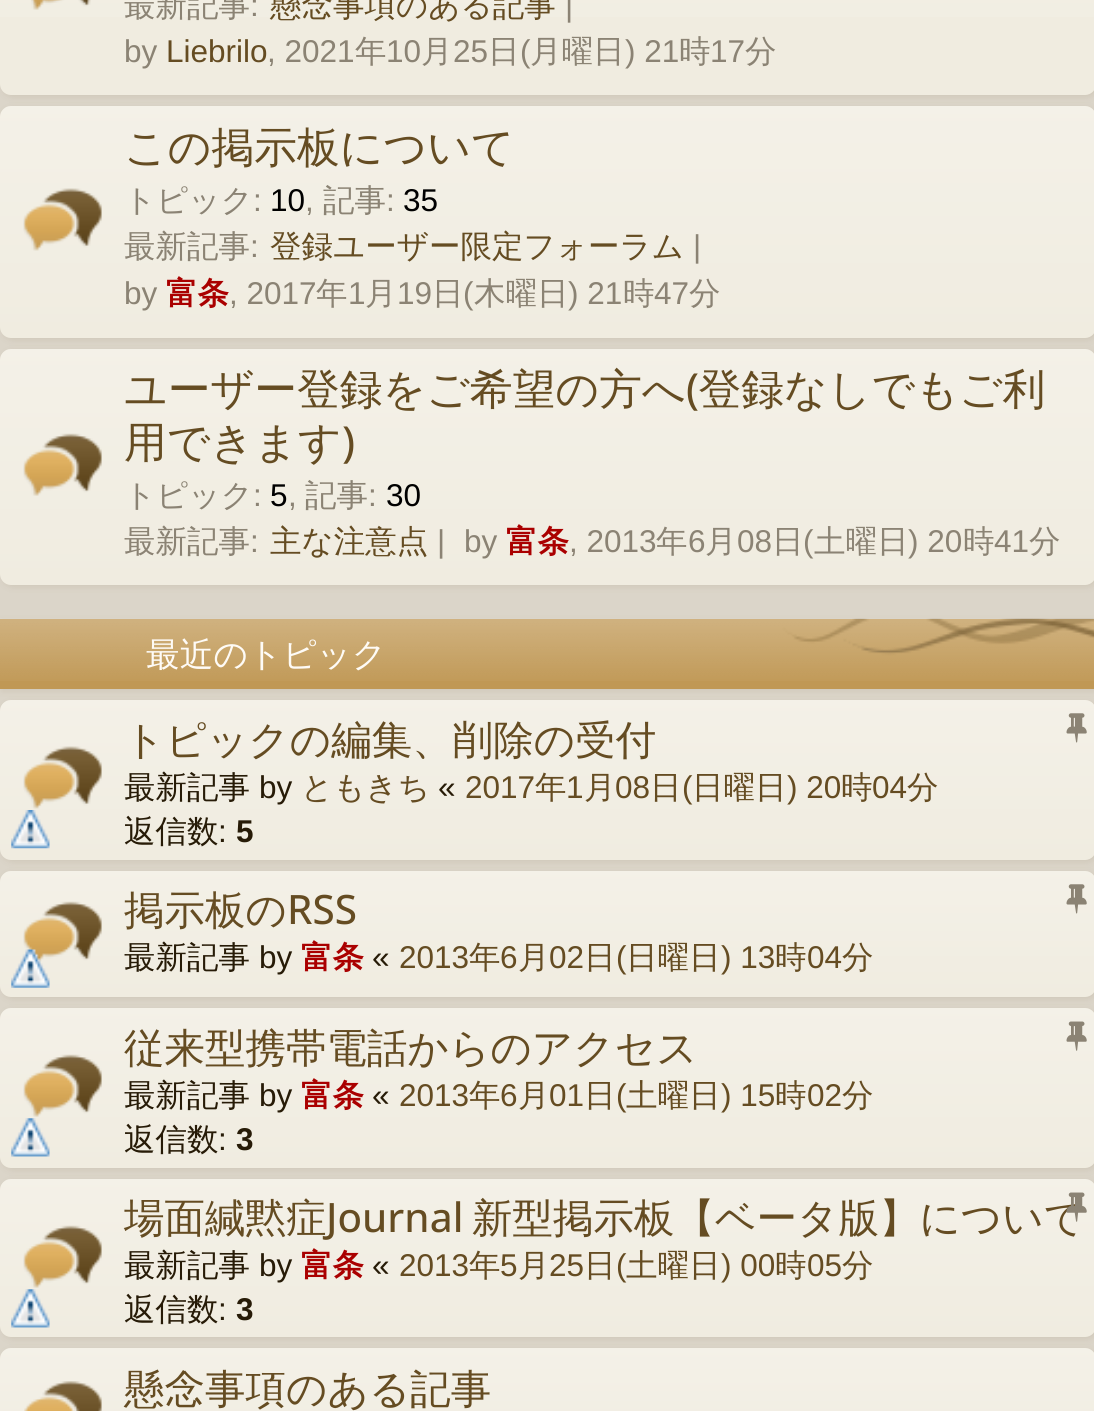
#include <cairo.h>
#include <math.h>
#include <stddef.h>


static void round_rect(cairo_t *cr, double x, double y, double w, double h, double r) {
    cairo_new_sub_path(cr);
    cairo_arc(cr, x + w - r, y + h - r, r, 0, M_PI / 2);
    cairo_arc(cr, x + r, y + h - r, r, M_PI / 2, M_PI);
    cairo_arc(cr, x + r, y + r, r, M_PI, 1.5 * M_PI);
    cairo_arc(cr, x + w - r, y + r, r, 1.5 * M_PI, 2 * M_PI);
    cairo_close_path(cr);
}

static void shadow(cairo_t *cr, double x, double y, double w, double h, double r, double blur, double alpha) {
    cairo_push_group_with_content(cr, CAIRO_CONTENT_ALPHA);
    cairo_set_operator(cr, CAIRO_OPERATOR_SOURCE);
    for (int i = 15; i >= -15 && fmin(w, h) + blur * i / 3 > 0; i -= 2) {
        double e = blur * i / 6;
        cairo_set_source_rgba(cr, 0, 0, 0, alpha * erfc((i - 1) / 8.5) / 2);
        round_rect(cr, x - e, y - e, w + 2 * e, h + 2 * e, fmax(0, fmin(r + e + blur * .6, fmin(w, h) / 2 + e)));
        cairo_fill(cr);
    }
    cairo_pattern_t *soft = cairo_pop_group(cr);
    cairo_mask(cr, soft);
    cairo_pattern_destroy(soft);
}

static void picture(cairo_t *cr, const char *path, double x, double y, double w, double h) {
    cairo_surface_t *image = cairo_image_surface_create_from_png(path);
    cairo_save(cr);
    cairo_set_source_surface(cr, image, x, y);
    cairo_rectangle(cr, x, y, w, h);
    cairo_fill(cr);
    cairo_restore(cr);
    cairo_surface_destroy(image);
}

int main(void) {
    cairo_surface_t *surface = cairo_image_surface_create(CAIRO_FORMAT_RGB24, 1094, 1411);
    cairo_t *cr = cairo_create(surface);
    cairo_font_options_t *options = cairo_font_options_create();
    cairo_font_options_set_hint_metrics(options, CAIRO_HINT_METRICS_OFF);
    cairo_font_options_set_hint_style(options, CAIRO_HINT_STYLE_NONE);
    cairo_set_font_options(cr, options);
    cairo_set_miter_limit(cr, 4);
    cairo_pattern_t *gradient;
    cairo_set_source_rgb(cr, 0.859, 0.835, 0.788);
    cairo_paint(cr);
    cairo_set_source_rgb(cr, 0.396, 0.298, 0.133);
    shadow(cr, 2, -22, 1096, 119, 11, 3.5, 0.1);
    cairo_set_source_rgb(cr, 0.941, 0.925, 0.878);
    round_rect(cr, 0, -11, 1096, 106, 11);
    cairo_fill(cr);
    gradient = cairo_pattern_create_linear(548, -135, 548, 95);
    cairo_pattern_add_color_stop_rgba(gradient, 0, 1, 1, 1, 0.25);
    cairo_pattern_add_color_stop_rgba(gradient, 1, 1, 1, 1, 0);
    cairo_set_source(cr, gradient);
    cairo_pattern_destroy(gradient);
    cairo_rectangle(cr, 0, 0, 1094, 17);
    cairo_fill(cr);
    picture(cr, "img1.png", 31, 0, 60, 10);
    cairo_select_font_face(cr, "WenQuanYi Zen Hei Medium", CAIRO_FONT_SLANT_NORMAL, CAIRO_FONT_WEIGHT_NORMAL);
    cairo_set_font_size(cr, 31.5);
    cairo_set_source_rgb(cr, 0.545, 0.514, 0.455);
    cairo_move_to(cr, 124, 16);
    cairo_show_text(cr, "最新記事");
    cairo_select_font_face(cr, "Liberation Sans", CAIRO_FONT_SLANT_NORMAL, CAIRO_FONT_WEIGHT_NORMAL);
    cairo_move_to(cr, 250, 16);
    cairo_show_text(cr, ":");
    cairo_select_font_face(cr, "WenQuanYi Zen Hei Medium", CAIRO_FONT_SLANT_NORMAL, CAIRO_FONT_WEIGHT_NORMAL);
    cairo_set_source_rgb(cr, 0.396, 0.298, 0.133);
    cairo_move_to(cr, 270, 16);
    cairo_show_text(cr, "懸念事項のある記事");
    cairo_select_font_face(cr, "Liberation Sans", CAIRO_FONT_SLANT_NORMAL, CAIRO_FONT_WEIGHT_NORMAL);
    cairo_set_source_rgb(cr, 0.545, 0.514, 0.455);
    cairo_move_to(cr, 565, 16);
    cairo_show_text(cr, "|");
    cairo_move_to(cr, 124, 62);
    cairo_show_text(cr, "by");
    cairo_set_source_rgb(cr, 0.396, 0.298, 0.133);
    cairo_move_to(cr, 166, 62);
    cairo_show_text(cr, "Liebrilo");
    cairo_set_source_rgb(cr, 0.545, 0.514, 0.455);
    cairo_move_to(cr, 267, 62);
    cairo_show_text(cr, ", 2021");
    cairo_select_font_face(cr, "WenQuanYi Zen Hei Medium", CAIRO_FONT_SLANT_NORMAL, CAIRO_FONT_WEIGHT_NORMAL);
    cairo_move_to(cr, 355, 62);
    cairo_show_text(cr, "年");
    cairo_select_font_face(cr, "Liberation Sans", CAIRO_FONT_SLANT_NORMAL, CAIRO_FONT_WEIGHT_NORMAL);
    cairo_move_to(cr, 386, 62);
    cairo_show_text(cr, "10");
    cairo_select_font_face(cr, "WenQuanYi Zen Hei Medium", CAIRO_FONT_SLANT_NORMAL, CAIRO_FONT_WEIGHT_NORMAL);
    cairo_move_to(cr, 421, 62);
    cairo_show_text(cr, "月");
    cairo_select_font_face(cr, "Liberation Sans", CAIRO_FONT_SLANT_NORMAL, CAIRO_FONT_WEIGHT_NORMAL);
    cairo_move_to(cr, 453, 62);
    cairo_show_text(cr, "25");
    cairo_select_font_face(cr, "WenQuanYi Zen Hei Medium", CAIRO_FONT_SLANT_NORMAL, CAIRO_FONT_WEIGHT_NORMAL);
    cairo_move_to(cr, 488, 62);
    cairo_show_text(cr, "日");
    cairo_select_font_face(cr, "Liberation Sans", CAIRO_FONT_SLANT_NORMAL, CAIRO_FONT_WEIGHT_NORMAL);
    cairo_move_to(cr, 520, 62);
    cairo_show_text(cr, "(");
    cairo_select_font_face(cr, "WenQuanYi Zen Hei Medium", CAIRO_FONT_SLANT_NORMAL, CAIRO_FONT_WEIGHT_NORMAL);
    cairo_move_to(cr, 530, 62);
    cairo_show_text(cr, "月曜日");
    cairo_select_font_face(cr, "Liberation Sans", CAIRO_FONT_SLANT_NORMAL, CAIRO_FONT_WEIGHT_NORMAL);
    cairo_move_to(cr, 625, 62);
    cairo_show_text(cr, ") 21");
    cairo_select_font_face(cr, "WenQuanYi Zen Hei Medium", CAIRO_FONT_SLANT_NORMAL, CAIRO_FONT_WEIGHT_NORMAL);
    cairo_move_to(cr, 679, 62);
    cairo_show_text(cr, "時");
    cairo_select_font_face(cr, "Liberation Sans", CAIRO_FONT_SLANT_NORMAL, CAIRO_FONT_WEIGHT_NORMAL);
    cairo_move_to(cr, 710, 62);
    cairo_show_text(cr, "17");
    cairo_select_font_face(cr, "WenQuanYi Zen Hei Medium", CAIRO_FONT_SLANT_NORMAL, CAIRO_FONT_WEIGHT_NORMAL);
    cairo_move_to(cr, 745, 62);
    cairo_show_text(cr, "分");
    cairo_set_source_rgb(cr, 0.396, 0.298, 0.133);
    shadow(cr, 2, 108, 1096, 232, 11, 3.5, 0.1);
    cairo_set_source_rgb(cr, 0.941, 0.925, 0.878);
    round_rect(cr, 0, 106, 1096, 232, 11);
    cairo_fill(cr);
    gradient = cairo_pattern_create_linear(548, 106, 548, 338);
    cairo_pattern_add_color_stop_rgba(gradient, 0, 1, 1, 1, 0.25);
    cairo_pattern_add_color_stop_rgba(gradient, 1, 1, 1, 1, 0);
    cairo_set_source(cr, gradient);
    cairo_pattern_destroy(gradient);
    round_rect(cr, 0, 106, 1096, 232, 11);
    cairo_fill(cr);
    picture(cr, "img2.png", 23, 188, 79, 63);
    cairo_set_font_size(cr, 42.75);
    cairo_set_source_rgb(cr, 0.396, 0.298, 0.133);
    cairo_move_to(cr, 124, 162);
    cairo_show_text(cr, "この掲示板について");
    cairo_set_font_size(cr, 31.5);
    cairo_set_source_rgb(cr, 0.545, 0.514, 0.455);
    cairo_move_to(cr, 124, 211);
    cairo_show_text(cr, "トピック");
    cairo_select_font_face(cr, "Liberation Sans", CAIRO_FONT_SLANT_NORMAL, CAIRO_FONT_WEIGHT_NORMAL);
    cairo_move_to(cr, 253, 211);
    cairo_show_text(cr, ":");
    cairo_set_source_rgb(cr, 0, 0, 0);
    cairo_move_to(cr, 270, 211);
    cairo_show_text(cr, "10");
    cairo_set_source_rgb(cr, 0.545, 0.514, 0.455);
    cairo_move_to(cr, 305, 211);
    cairo_show_text(cr, ",");
    cairo_select_font_face(cr, "WenQuanYi Zen Hei Medium", CAIRO_FONT_SLANT_NORMAL, CAIRO_FONT_WEIGHT_NORMAL);
    cairo_move_to(cr, 323, 211);
    cairo_show_text(cr, "記事");
    cairo_select_font_face(cr, "Liberation Sans", CAIRO_FONT_SLANT_NORMAL, CAIRO_FONT_WEIGHT_NORMAL);
    cairo_move_to(cr, 386, 211);
    cairo_show_text(cr, ":");
    cairo_set_source_rgb(cr, 0, 0, 0);
    cairo_move_to(cr, 403, 211);
    cairo_show_text(cr, "35");
    cairo_select_font_face(cr, "WenQuanYi Zen Hei Medium", CAIRO_FONT_SLANT_NORMAL, CAIRO_FONT_WEIGHT_NORMAL);
    cairo_set_source_rgb(cr, 0.545, 0.514, 0.455);
    cairo_move_to(cr, 124, 257);
    cairo_show_text(cr, "最新記事");
    cairo_select_font_face(cr, "Liberation Sans", CAIRO_FONT_SLANT_NORMAL, CAIRO_FONT_WEIGHT_NORMAL);
    cairo_move_to(cr, 250, 257);
    cairo_show_text(cr, ":");
    cairo_select_font_face(cr, "WenQuanYi Zen Hei Medium", CAIRO_FONT_SLANT_NORMAL, CAIRO_FONT_WEIGHT_NORMAL);
    cairo_set_source_rgb(cr, 0.396, 0.298, 0.133);
    cairo_move_to(cr, 270, 257);
    cairo_show_text(cr, "登録ユーザー限定フォーラム");
    cairo_select_font_face(cr, "Liberation Sans", CAIRO_FONT_SLANT_NORMAL, CAIRO_FONT_WEIGHT_NORMAL);
    cairo_set_source_rgb(cr, 0.545, 0.514, 0.455);
    cairo_move_to(cr, 693, 257);
    cairo_show_text(cr, "|");
    cairo_move_to(cr, 124, 304);
    cairo_show_text(cr, "by");
    cairo_select_font_face(cr, "WenQuanYi Zen Hei", CAIRO_FONT_SLANT_NORMAL, CAIRO_FONT_WEIGHT_BOLD);
    cairo_set_source_rgb(cr, 0.667, 0, 0);
    cairo_move_to(cr, 166, 304);
    cairo_show_text(cr, "富条");
    cairo_select_font_face(cr, "Liberation Sans", CAIRO_FONT_SLANT_NORMAL, CAIRO_FONT_WEIGHT_NORMAL);
    cairo_set_source_rgb(cr, 0.545, 0.514, 0.455);
    cairo_move_to(cr, 229, 304);
    cairo_show_text(cr, ", 2017");
    cairo_select_font_face(cr, "WenQuanYi Zen Hei Medium", CAIRO_FONT_SLANT_NORMAL, CAIRO_FONT_WEIGHT_NORMAL);
    cairo_move_to(cr, 316, 304);
    cairo_show_text(cr, "年");
    cairo_select_font_face(cr, "Liberation Sans", CAIRO_FONT_SLANT_NORMAL, CAIRO_FONT_WEIGHT_NORMAL);
    cairo_move_to(cr, 348, 304);
    cairo_show_text(cr, "1");
    cairo_select_font_face(cr, "WenQuanYi Zen Hei Medium", CAIRO_FONT_SLANT_NORMAL, CAIRO_FONT_WEIGHT_NORMAL);
    cairo_move_to(cr, 365, 304);
    cairo_show_text(cr, "月");
    cairo_select_font_face(cr, "Liberation Sans", CAIRO_FONT_SLANT_NORMAL, CAIRO_FONT_WEIGHT_NORMAL);
    cairo_move_to(cr, 397, 304);
    cairo_show_text(cr, "19");
    cairo_select_font_face(cr, "WenQuanYi Zen Hei Medium", CAIRO_FONT_SLANT_NORMAL, CAIRO_FONT_WEIGHT_NORMAL);
    cairo_move_to(cr, 432, 304);
    cairo_show_text(cr, "日");
    cairo_select_font_face(cr, "Liberation Sans", CAIRO_FONT_SLANT_NORMAL, CAIRO_FONT_WEIGHT_NORMAL);
    cairo_move_to(cr, 463, 304);
    cairo_show_text(cr, "(");
    cairo_select_font_face(cr, "WenQuanYi Zen Hei Medium", CAIRO_FONT_SLANT_NORMAL, CAIRO_FONT_WEIGHT_NORMAL);
    cairo_move_to(cr, 474, 304);
    cairo_show_text(cr, "木曜日");
    cairo_select_font_face(cr, "Liberation Sans", CAIRO_FONT_SLANT_NORMAL, CAIRO_FONT_WEIGHT_NORMAL);
    cairo_move_to(cr, 568, 304);
    cairo_show_text(cr, ") 21");
    cairo_select_font_face(cr, "WenQuanYi Zen Hei Medium", CAIRO_FONT_SLANT_NORMAL, CAIRO_FONT_WEIGHT_NORMAL);
    cairo_move_to(cr, 623, 304);
    cairo_show_text(cr, "時");
    cairo_select_font_face(cr, "Liberation Sans", CAIRO_FONT_SLANT_NORMAL, CAIRO_FONT_WEIGHT_NORMAL);
    cairo_move_to(cr, 654, 304);
    cairo_show_text(cr, "47");
    cairo_select_font_face(cr, "WenQuanYi Zen Hei Medium", CAIRO_FONT_SLANT_NORMAL, CAIRO_FONT_WEIGHT_NORMAL);
    cairo_move_to(cr, 689, 304);
    cairo_show_text(cr, "分");
    cairo_set_source_rgb(cr, 0.396, 0.298, 0.133);
    shadow(cr, 2, 351, 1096, 236, 11, 3.5, 0.1);
    cairo_set_source_rgb(cr, 0.941, 0.925, 0.878);
    round_rect(cr, 0, 349, 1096, 236, 11);
    cairo_fill(cr);
    gradient = cairo_pattern_create_linear(548, 349, 548, 585);
    cairo_pattern_add_color_stop_rgba(gradient, 0, 1, 1, 1, 0.25);
    cairo_pattern_add_color_stop_rgba(gradient, 1, 1, 1, 1, 0);
    cairo_set_source(cr, gradient);
    cairo_pattern_destroy(gradient);
    round_rect(cr, 0, 349, 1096, 236, 11);
    cairo_fill(cr);
    picture(cr, "img3.png", 23, 433, 79, 63);
    cairo_set_font_size(cr, 42.75);
    cairo_set_source_rgb(cr, 0.396, 0.298, 0.133);
    cairo_move_to(cr, 124, 404);
    cairo_show_text(cr, "ユーザー登録をご希望の方へ 登録なしでもご利");
    cairo_select_font_face(cr, "Open Sans Medium", CAIRO_FONT_SLANT_NORMAL, CAIRO_FONT_WEIGHT_NORMAL);
    cairo_move_to(cr, 686, 404);
    cairo_show_text(cr, "(");
    cairo_select_font_face(cr, "WenQuanYi Zen Hei Medium", CAIRO_FONT_SLANT_NORMAL, CAIRO_FONT_WEIGHT_NORMAL);
    cairo_move_to(cr, 124, 457);
    cairo_show_text(cr, "用できます");
    cairo_select_font_face(cr, "Open Sans Medium", CAIRO_FONT_SLANT_NORMAL, CAIRO_FONT_WEIGHT_NORMAL);
    cairo_move_to(cr, 342, 457);
    cairo_show_text(cr, ")");
    cairo_select_font_face(cr, "WenQuanYi Zen Hei Medium", CAIRO_FONT_SLANT_NORMAL, CAIRO_FONT_WEIGHT_NORMAL);
    cairo_set_font_size(cr, 31.5);
    cairo_set_source_rgb(cr, 0.545, 0.514, 0.455);
    cairo_move_to(cr, 124, 506);
    cairo_show_text(cr, "トピック");
    cairo_select_font_face(cr, "Liberation Sans", CAIRO_FONT_SLANT_NORMAL, CAIRO_FONT_WEIGHT_NORMAL);
    cairo_move_to(cr, 253, 506);
    cairo_show_text(cr, ":");
    cairo_set_source_rgb(cr, 0, 0, 0);
    cairo_move_to(cr, 270, 506);
    cairo_show_text(cr, "5");
    cairo_set_source_rgb(cr, 0.545, 0.514, 0.455);
    cairo_move_to(cr, 288, 506);
    cairo_show_text(cr, ",");
    cairo_select_font_face(cr, "WenQuanYi Zen Hei Medium", CAIRO_FONT_SLANT_NORMAL, CAIRO_FONT_WEIGHT_NORMAL);
    cairo_move_to(cr, 305, 506);
    cairo_show_text(cr, "記事");
    cairo_select_font_face(cr, "Liberation Sans", CAIRO_FONT_SLANT_NORMAL, CAIRO_FONT_WEIGHT_NORMAL);
    cairo_move_to(cr, 368, 506);
    cairo_show_text(cr, ":");
    cairo_set_source_rgb(cr, 0, 0, 0);
    cairo_move_to(cr, 386, 506);
    cairo_show_text(cr, "30");
    cairo_select_font_face(cr, "WenQuanYi Zen Hei Medium", CAIRO_FONT_SLANT_NORMAL, CAIRO_FONT_WEIGHT_NORMAL);
    cairo_set_source_rgb(cr, 0.545, 0.514, 0.455);
    cairo_move_to(cr, 124, 552);
    cairo_show_text(cr, "最新記事");
    cairo_select_font_face(cr, "Liberation Sans", CAIRO_FONT_SLANT_NORMAL, CAIRO_FONT_WEIGHT_NORMAL);
    cairo_move_to(cr, 250, 552);
    cairo_show_text(cr, ":");
    cairo_select_font_face(cr, "WenQuanYi Zen Hei Medium", CAIRO_FONT_SLANT_NORMAL, CAIRO_FONT_WEIGHT_NORMAL);
    cairo_set_source_rgb(cr, 0.396, 0.298, 0.133);
    cairo_move_to(cr, 270, 552);
    cairo_show_text(cr, "主な注意点");
    cairo_select_font_face(cr, "Liberation Sans", CAIRO_FONT_SLANT_NORMAL, CAIRO_FONT_WEIGHT_NORMAL);
    cairo_set_source_rgb(cr, 0.545, 0.514, 0.455);
    cairo_move_to(cr, 437, 552);
    cairo_show_text(cr, "|");
    cairo_move_to(cr, 464, 552);
    cairo_show_text(cr, "by");
    cairo_select_font_face(cr, "WenQuanYi Zen Hei", CAIRO_FONT_SLANT_NORMAL, CAIRO_FONT_WEIGHT_BOLD);
    cairo_set_source_rgb(cr, 0.667, 0, 0);
    cairo_move_to(cr, 506, 552);
    cairo_show_text(cr, "富条");
    cairo_select_font_face(cr, "Liberation Sans", CAIRO_FONT_SLANT_NORMAL, CAIRO_FONT_WEIGHT_NORMAL);
    cairo_set_source_rgb(cr, 0.545, 0.514, 0.455);
    cairo_move_to(cr, 569, 552);
    cairo_show_text(cr, ", 2013");
    cairo_select_font_face(cr, "WenQuanYi Zen Hei Medium", CAIRO_FONT_SLANT_NORMAL, CAIRO_FONT_WEIGHT_NORMAL);
    cairo_move_to(cr, 656, 552);
    cairo_show_text(cr, "年");
    cairo_select_font_face(cr, "Liberation Sans", CAIRO_FONT_SLANT_NORMAL, CAIRO_FONT_WEIGHT_NORMAL);
    cairo_move_to(cr, 688, 552);
    cairo_show_text(cr, "6");
    cairo_select_font_face(cr, "WenQuanYi Zen Hei Medium", CAIRO_FONT_SLANT_NORMAL, CAIRO_FONT_WEIGHT_NORMAL);
    cairo_move_to(cr, 705, 552);
    cairo_show_text(cr, "月");
    cairo_select_font_face(cr, "Liberation Sans", CAIRO_FONT_SLANT_NORMAL, CAIRO_FONT_WEIGHT_NORMAL);
    cairo_move_to(cr, 737, 552);
    cairo_show_text(cr, "08");
    cairo_select_font_face(cr, "WenQuanYi Zen Hei Medium", CAIRO_FONT_SLANT_NORMAL, CAIRO_FONT_WEIGHT_NORMAL);
    cairo_move_to(cr, 772, 552);
    cairo_show_text(cr, "日");
    cairo_select_font_face(cr, "Liberation Sans", CAIRO_FONT_SLANT_NORMAL, CAIRO_FONT_WEIGHT_NORMAL);
    cairo_move_to(cr, 803, 552);
    cairo_show_text(cr, "(");
    cairo_select_font_face(cr, "WenQuanYi Zen Hei Medium", CAIRO_FONT_SLANT_NORMAL, CAIRO_FONT_WEIGHT_NORMAL);
    cairo_move_to(cr, 814, 552);
    cairo_show_text(cr, "土曜日");
    cairo_select_font_face(cr, "Liberation Sans", CAIRO_FONT_SLANT_NORMAL, CAIRO_FONT_WEIGHT_NORMAL);
    cairo_move_to(cr, 908, 552);
    cairo_show_text(cr, ") 20");
    cairo_select_font_face(cr, "WenQuanYi Zen Hei Medium", CAIRO_FONT_SLANT_NORMAL, CAIRO_FONT_WEIGHT_NORMAL);
    cairo_move_to(cr, 963, 552);
    cairo_show_text(cr, "時");
    cairo_select_font_face(cr, "Liberation Sans", CAIRO_FONT_SLANT_NORMAL, CAIRO_FONT_WEIGHT_NORMAL);
    cairo_move_to(cr, 994, 552);
    cairo_show_text(cr, "41");
    cairo_select_font_face(cr, "WenQuanYi Zen Hei Medium", CAIRO_FONT_SLANT_NORMAL, CAIRO_FONT_WEIGHT_NORMAL);
    cairo_move_to(cr, 1029, 552);
    cairo_show_text(cr, "分");
    cairo_set_source_rgb(cr, 0.396, 0.298, 0.133);
    shadow(cr, 2, 702, 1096, 160, 11, 3.5, 0.1);
    cairo_set_source_rgb(cr, 0.941, 0.925, 0.878);
    round_rect(cr, 0, 700, 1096, 160, 11);
    cairo_fill(cr);
    gradient = cairo_pattern_create_linear(548, 700, 548, 860);
    cairo_pattern_add_color_stop_rgba(gradient, 0, 1, 1, 1, 0.25);
    cairo_pattern_add_color_stop_rgba(gradient, 1, 1, 1, 1, 0);
    cairo_set_source(cr, gradient);
    cairo_pattern_destroy(gradient);
    round_rect(cr, 0, 700, 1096, 160, 11);
    cairo_fill(cr);
    cairo_set_source_rgb(cr, 0.396, 0.298, 0.133);
    shadow(cr, 2, 621, 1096, 70, 0, 3.5, 0.1);
    cairo_set_source_rgb(cr, 0.753, 0.596, 0.333);
    cairo_rectangle(cr, 0, 619, 1094, 70);
    cairo_fill(cr);
    picture(cr, "img4.png", 0, 618, 1094, 63);
    cairo_set_font_size(cr, 33.75);
    cairo_set_source_rgb(cr, 0.996, 0.984, 0.961);
    cairo_move_to(cr, 146, 666);
    cairo_show_text(cr, "最近のトピック");
    picture(cr, "img5.png", 23, 746, 79, 63);
    picture(cr, "img6.png", 11, 810, 39, 39);
    cairo_set_font_size(cr, 40.5);
    cairo_set_source_rgb(cr, 0.396, 0.298, 0.133);
    cairo_move_to(cr, 124, 754);
    cairo_show_text(cr, "トピックの編集、削除の受付");
    picture(cr, "img7.png", 1066, 713, 21, 30);
    cairo_set_font_size(cr, 31.5);
    cairo_set_source_rgb(cr, 0.153, 0.106, 0.031);
    cairo_move_to(cr, 124, 798);
    cairo_show_text(cr, "最新記事");
    cairo_select_font_face(cr, "Liberation Sans", CAIRO_FONT_SLANT_NORMAL, CAIRO_FONT_WEIGHT_NORMAL);
    cairo_move_to(cr, 259, 798);
    cairo_show_text(cr, "by");
    cairo_select_font_face(cr, "WenQuanYi Zen Hei Medium", CAIRO_FONT_SLANT_NORMAL, CAIRO_FONT_WEIGHT_NORMAL);
    cairo_set_source_rgb(cr, 0.396, 0.298, 0.133);
    cairo_move_to(cr, 301, 798);
    cairo_show_text(cr, "ともきち");
    cairo_select_font_face(cr, "Liberation Sans", CAIRO_FONT_SLANT_NORMAL, CAIRO_FONT_WEIGHT_NORMAL);
    cairo_set_source_rgb(cr, 0.153, 0.106, 0.031);
    cairo_move_to(cr, 438, 798);
    cairo_show_text(cr, "«");
    cairo_set_source_rgb(cr, 0.396, 0.298, 0.133);
    cairo_move_to(cr, 465, 798);
    cairo_show_text(cr, "2017");
    cairo_select_font_face(cr, "WenQuanYi Zen Hei Medium", CAIRO_FONT_SLANT_NORMAL, CAIRO_FONT_WEIGHT_NORMAL);
    cairo_move_to(cr, 535, 798);
    cairo_show_text(cr, "年");
    cairo_select_font_face(cr, "Liberation Sans", CAIRO_FONT_SLANT_NORMAL, CAIRO_FONT_WEIGHT_NORMAL);
    cairo_move_to(cr, 566, 798);
    cairo_show_text(cr, "1");
    cairo_select_font_face(cr, "WenQuanYi Zen Hei Medium", CAIRO_FONT_SLANT_NORMAL, CAIRO_FONT_WEIGHT_NORMAL);
    cairo_move_to(cr, 584, 798);
    cairo_show_text(cr, "月");
    cairo_select_font_face(cr, "Liberation Sans", CAIRO_FONT_SLANT_NORMAL, CAIRO_FONT_WEIGHT_NORMAL);
    cairo_move_to(cr, 615, 798);
    cairo_show_text(cr, "08");
    cairo_select_font_face(cr, "WenQuanYi Zen Hei Medium", CAIRO_FONT_SLANT_NORMAL, CAIRO_FONT_WEIGHT_NORMAL);
    cairo_move_to(cr, 650, 798);
    cairo_show_text(cr, "日");
    cairo_select_font_face(cr, "Liberation Sans", CAIRO_FONT_SLANT_NORMAL, CAIRO_FONT_WEIGHT_NORMAL);
    cairo_move_to(cr, 682, 798);
    cairo_show_text(cr, "(");
    cairo_select_font_face(cr, "WenQuanYi Zen Hei Medium", CAIRO_FONT_SLANT_NORMAL, CAIRO_FONT_WEIGHT_NORMAL);
    cairo_move_to(cr, 692, 798);
    cairo_show_text(cr, "日曜日");
    cairo_select_font_face(cr, "Liberation Sans", CAIRO_FONT_SLANT_NORMAL, CAIRO_FONT_WEIGHT_NORMAL);
    cairo_move_to(cr, 787, 798);
    cairo_show_text(cr, ") 20");
    cairo_select_font_face(cr, "WenQuanYi Zen Hei Medium", CAIRO_FONT_SLANT_NORMAL, CAIRO_FONT_WEIGHT_NORMAL);
    cairo_move_to(cr, 841, 798);
    cairo_show_text(cr, "時");
    cairo_select_font_face(cr, "Liberation Sans", CAIRO_FONT_SLANT_NORMAL, CAIRO_FONT_WEIGHT_NORMAL);
    cairo_move_to(cr, 872, 798);
    cairo_show_text(cr, "04");
    cairo_select_font_face(cr, "WenQuanYi Zen Hei Medium", CAIRO_FONT_SLANT_NORMAL, CAIRO_FONT_WEIGHT_NORMAL);
    cairo_move_to(cr, 907, 798);
    cairo_show_text(cr, "分");
    cairo_set_source_rgb(cr, 0.153, 0.106, 0.031);
    cairo_move_to(cr, 124, 842);
    cairo_show_text(cr, "返信数");
    cairo_select_font_face(cr, "Liberation Sans", CAIRO_FONT_SLANT_NORMAL, CAIRO_FONT_WEIGHT_NORMAL);
    cairo_move_to(cr, 218, 842);
    cairo_show_text(cr, ":");
    cairo_select_font_face(cr, "Liberation Sans", CAIRO_FONT_SLANT_NORMAL, CAIRO_FONT_WEIGHT_BOLD);
    cairo_move_to(cr, 236, 842);
    cairo_show_text(cr, "5");
    cairo_set_source_rgb(cr, 0.396, 0.298, 0.133);
    shadow(cr, 2, 873, 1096, 126, 11, 3.5, 0.1);
    cairo_set_source_rgb(cr, 0.941, 0.925, 0.878);
    round_rect(cr, 0, 871, 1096, 126, 11);
    cairo_fill(cr);
    gradient = cairo_pattern_create_linear(548, 871, 548, 997);
    cairo_pattern_add_color_stop_rgba(gradient, 0, 1, 1, 1, 0.25);
    cairo_pattern_add_color_stop_rgba(gradient, 1, 1, 1, 1, 0);
    cairo_set_source(cr, gradient);
    cairo_pattern_destroy(gradient);
    round_rect(cr, 0, 871, 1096, 126, 11);
    cairo_fill(cr);
    picture(cr, "img8.png", 23, 901, 79, 61);
    picture(cr, "img9.png", 11, 949, 39, 39);
    cairo_select_font_face(cr, "WenQuanYi Zen Hei Medium", CAIRO_FONT_SLANT_NORMAL, CAIRO_FONT_WEIGHT_NORMAL);
    cairo_set_font_size(cr, 40.5);
    cairo_set_source_rgb(cr, 0.396, 0.298, 0.133);
    cairo_move_to(cr, 124, 924);
    cairo_show_text(cr, "掲示板の");
    cairo_select_font_face(cr, "Open Sans Medium", CAIRO_FONT_SLANT_NORMAL, CAIRO_FONT_WEIGHT_NORMAL);
    cairo_move_to(cr, 287, 924);
    cairo_show_text(cr, "RSS");
    picture(cr, "img10.png", 1066, 884, 21, 30);
    cairo_select_font_face(cr, "WenQuanYi Zen Hei Medium", CAIRO_FONT_SLANT_NORMAL, CAIRO_FONT_WEIGHT_NORMAL);
    cairo_set_font_size(cr, 31.5);
    cairo_set_source_rgb(cr, 0.153, 0.106, 0.031);
    cairo_move_to(cr, 124, 968);
    cairo_show_text(cr, "最新記事");
    cairo_select_font_face(cr, "Liberation Sans", CAIRO_FONT_SLANT_NORMAL, CAIRO_FONT_WEIGHT_NORMAL);
    cairo_move_to(cr, 259, 968);
    cairo_show_text(cr, "by");
    cairo_select_font_face(cr, "WenQuanYi Zen Hei", CAIRO_FONT_SLANT_NORMAL, CAIRO_FONT_WEIGHT_BOLD);
    cairo_set_source_rgb(cr, 0.667, 0, 0);
    cairo_move_to(cr, 301, 968);
    cairo_show_text(cr, "富条");
    cairo_select_font_face(cr, "Liberation Sans", CAIRO_FONT_SLANT_NORMAL, CAIRO_FONT_WEIGHT_NORMAL);
    cairo_set_source_rgb(cr, 0.153, 0.106, 0.031);
    cairo_move_to(cr, 372, 968);
    cairo_show_text(cr, "«");
    cairo_set_source_rgb(cr, 0.396, 0.298, 0.133);
    cairo_move_to(cr, 399, 968);
    cairo_show_text(cr, "2013");
    cairo_select_font_face(cr, "WenQuanYi Zen Hei Medium", CAIRO_FONT_SLANT_NORMAL, CAIRO_FONT_WEIGHT_NORMAL);
    cairo_move_to(cr, 469, 968);
    cairo_show_text(cr, "年");
    cairo_select_font_face(cr, "Liberation Sans", CAIRO_FONT_SLANT_NORMAL, CAIRO_FONT_WEIGHT_NORMAL);
    cairo_move_to(cr, 500, 968);
    cairo_show_text(cr, "6");
    cairo_select_font_face(cr, "WenQuanYi Zen Hei Medium", CAIRO_FONT_SLANT_NORMAL, CAIRO_FONT_WEIGHT_NORMAL);
    cairo_move_to(cr, 518, 968);
    cairo_show_text(cr, "月");
    cairo_select_font_face(cr, "Liberation Sans", CAIRO_FONT_SLANT_NORMAL, CAIRO_FONT_WEIGHT_NORMAL);
    cairo_move_to(cr, 549, 968);
    cairo_show_text(cr, "02");
    cairo_select_font_face(cr, "WenQuanYi Zen Hei Medium", CAIRO_FONT_SLANT_NORMAL, CAIRO_FONT_WEIGHT_NORMAL);
    cairo_move_to(cr, 584, 968);
    cairo_show_text(cr, "日");
    cairo_select_font_face(cr, "Liberation Sans", CAIRO_FONT_SLANT_NORMAL, CAIRO_FONT_WEIGHT_NORMAL);
    cairo_move_to(cr, 616, 968);
    cairo_show_text(cr, "(");
    cairo_select_font_face(cr, "WenQuanYi Zen Hei Medium", CAIRO_FONT_SLANT_NORMAL, CAIRO_FONT_WEIGHT_NORMAL);
    cairo_move_to(cr, 626, 968);
    cairo_show_text(cr, "日曜日");
    cairo_select_font_face(cr, "Liberation Sans", CAIRO_FONT_SLANT_NORMAL, CAIRO_FONT_WEIGHT_NORMAL);
    cairo_move_to(cr, 721, 968);
    cairo_show_text(cr, ") 13");
    cairo_select_font_face(cr, "WenQuanYi Zen Hei Medium", CAIRO_FONT_SLANT_NORMAL, CAIRO_FONT_WEIGHT_NORMAL);
    cairo_move_to(cr, 775, 968);
    cairo_show_text(cr, "時");
    cairo_select_font_face(cr, "Liberation Sans", CAIRO_FONT_SLANT_NORMAL, CAIRO_FONT_WEIGHT_NORMAL);
    cairo_move_to(cr, 807, 968);
    cairo_show_text(cr, "04");
    cairo_select_font_face(cr, "WenQuanYi Zen Hei Medium", CAIRO_FONT_SLANT_NORMAL, CAIRO_FONT_WEIGHT_NORMAL);
    cairo_move_to(cr, 842, 968);
    cairo_show_text(cr, "分");
    cairo_set_source_rgb(cr, 0.396, 0.298, 0.133);
    shadow(cr, 2, 1010, 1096, 160, 11, 3.5, 0.1);
    cairo_set_source_rgb(cr, 0.941, 0.925, 0.878);
    round_rect(cr, 0, 1008, 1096, 160, 11);
    cairo_fill(cr);
    gradient = cairo_pattern_create_linear(548, 1008, 548, 1168);
    cairo_pattern_add_color_stop_rgba(gradient, 0, 1, 1, 1, 0.25);
    cairo_pattern_add_color_stop_rgba(gradient, 1, 1, 1, 1, 0);
    cairo_set_source(cr, gradient);
    cairo_pattern_destroy(gradient);
    round_rect(cr, 0, 1008, 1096, 160, 11);
    cairo_fill(cr);
    picture(cr, "img11.png", 23, 1054, 79, 63);
    picture(cr, "img12.png", 11, 1118, 39, 39);
    cairo_set_font_size(cr, 40.5);
    cairo_set_source_rgb(cr, 0.396, 0.298, 0.133);
    cairo_move_to(cr, 124, 1062);
    cairo_show_text(cr, "従来型携帯電話からのアクセス");
    picture(cr, "img13.png", 1066, 1021, 21, 30);
    cairo_set_font_size(cr, 31.5);
    cairo_set_source_rgb(cr, 0.153, 0.106, 0.031);
    cairo_move_to(cr, 124, 1106);
    cairo_show_text(cr, "最新記事");
    cairo_select_font_face(cr, "Liberation Sans", CAIRO_FONT_SLANT_NORMAL, CAIRO_FONT_WEIGHT_NORMAL);
    cairo_move_to(cr, 259, 1106);
    cairo_show_text(cr, "by");
    cairo_select_font_face(cr, "WenQuanYi Zen Hei", CAIRO_FONT_SLANT_NORMAL, CAIRO_FONT_WEIGHT_BOLD);
    cairo_set_source_rgb(cr, 0.667, 0, 0);
    cairo_move_to(cr, 301, 1106);
    cairo_show_text(cr, "富条");
    cairo_select_font_face(cr, "Liberation Sans", CAIRO_FONT_SLANT_NORMAL, CAIRO_FONT_WEIGHT_NORMAL);
    cairo_set_source_rgb(cr, 0.153, 0.106, 0.031);
    cairo_move_to(cr, 372, 1106);
    cairo_show_text(cr, "«");
    cairo_set_source_rgb(cr, 0.396, 0.298, 0.133);
    cairo_move_to(cr, 399, 1106);
    cairo_show_text(cr, "2013");
    cairo_select_font_face(cr, "WenQuanYi Zen Hei Medium", CAIRO_FONT_SLANT_NORMAL, CAIRO_FONT_WEIGHT_NORMAL);
    cairo_move_to(cr, 469, 1106);
    cairo_show_text(cr, "年");
    cairo_select_font_face(cr, "Liberation Sans", CAIRO_FONT_SLANT_NORMAL, CAIRO_FONT_WEIGHT_NORMAL);
    cairo_move_to(cr, 500, 1106);
    cairo_show_text(cr, "6");
    cairo_select_font_face(cr, "WenQuanYi Zen Hei Medium", CAIRO_FONT_SLANT_NORMAL, CAIRO_FONT_WEIGHT_NORMAL);
    cairo_move_to(cr, 518, 1106);
    cairo_show_text(cr, "月");
    cairo_select_font_face(cr, "Liberation Sans", CAIRO_FONT_SLANT_NORMAL, CAIRO_FONT_WEIGHT_NORMAL);
    cairo_move_to(cr, 549, 1106);
    cairo_show_text(cr, "01");
    cairo_select_font_face(cr, "WenQuanYi Zen Hei Medium", CAIRO_FONT_SLANT_NORMAL, CAIRO_FONT_WEIGHT_NORMAL);
    cairo_move_to(cr, 584, 1106);
    cairo_show_text(cr, "日");
    cairo_select_font_face(cr, "Liberation Sans", CAIRO_FONT_SLANT_NORMAL, CAIRO_FONT_WEIGHT_NORMAL);
    cairo_move_to(cr, 616, 1106);
    cairo_show_text(cr, "(");
    cairo_select_font_face(cr, "WenQuanYi Zen Hei Medium", CAIRO_FONT_SLANT_NORMAL, CAIRO_FONT_WEIGHT_NORMAL);
    cairo_move_to(cr, 626, 1106);
    cairo_show_text(cr, "土曜日");
    cairo_select_font_face(cr, "Liberation Sans", CAIRO_FONT_SLANT_NORMAL, CAIRO_FONT_WEIGHT_NORMAL);
    cairo_move_to(cr, 721, 1106);
    cairo_show_text(cr, ") 15");
    cairo_select_font_face(cr, "WenQuanYi Zen Hei Medium", CAIRO_FONT_SLANT_NORMAL, CAIRO_FONT_WEIGHT_NORMAL);
    cairo_move_to(cr, 775, 1106);
    cairo_show_text(cr, "時");
    cairo_select_font_face(cr, "Liberation Sans", CAIRO_FONT_SLANT_NORMAL, CAIRO_FONT_WEIGHT_NORMAL);
    cairo_move_to(cr, 807, 1106);
    cairo_show_text(cr, "02");
    cairo_select_font_face(cr, "WenQuanYi Zen Hei Medium", CAIRO_FONT_SLANT_NORMAL, CAIRO_FONT_WEIGHT_NORMAL);
    cairo_move_to(cr, 842, 1106);
    cairo_show_text(cr, "分");
    cairo_set_source_rgb(cr, 0.153, 0.106, 0.031);
    cairo_move_to(cr, 124, 1150);
    cairo_show_text(cr, "返信数");
    cairo_select_font_face(cr, "Liberation Sans", CAIRO_FONT_SLANT_NORMAL, CAIRO_FONT_WEIGHT_NORMAL);
    cairo_move_to(cr, 218, 1150);
    cairo_show_text(cr, ":");
    cairo_select_font_face(cr, "Liberation Sans", CAIRO_FONT_SLANT_NORMAL, CAIRO_FONT_WEIGHT_BOLD);
    cairo_move_to(cr, 236, 1150);
    cairo_show_text(cr, "3");
    cairo_set_source_rgb(cr, 0.396, 0.298, 0.133);
    shadow(cr, 2, 1181, 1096, 158, 11, 3.5, 0.1);
    cairo_set_source_rgb(cr, 0.941, 0.925, 0.878);
    round_rect(cr, 0, 1179, 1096, 158, 11);
    cairo_fill(cr);
    gradient = cairo_pattern_create_linear(548, 1179, 548, 1337);
    cairo_pattern_add_color_stop_rgba(gradient, 0, 1, 1, 1, 0.25);
    cairo_pattern_add_color_stop_rgba(gradient, 1, 1, 1, 1, 0);
    cairo_set_source(cr, gradient);
    cairo_pattern_destroy(gradient);
    round_rect(cr, 0, 1179, 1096, 158, 11);
    cairo_fill(cr);
    picture(cr, "img14.png", 23, 1225, 79, 63);
    picture(cr, "img15.png", 11, 1289, 39, 39);
    cairo_select_font_face(cr, "WenQuanYi Zen Hei Medium", CAIRO_FONT_SLANT_NORMAL, CAIRO_FONT_WEIGHT_NORMAL);
    cairo_set_font_size(cr, 40.5);
    cairo_set_source_rgb(cr, 0.396, 0.298, 0.133);
    cairo_move_to(cr, 472, 1232);
    cairo_show_text(cr, "新型掲示板【ベータ版】について");
    picture(cr, "img16.png", 1066, 1192, 21, 30);
    cairo_move_to(cr, 124, 1232);
    cairo_show_text(cr, "場面緘黙症");
    cairo_select_font_face(cr, "Open Sans Medium", CAIRO_FONT_SLANT_NORMAL, CAIRO_FONT_WEIGHT_NORMAL);
    cairo_move_to(cr, 326, 1232);
    cairo_show_text(cr, "Journal");
    cairo_select_font_face(cr, "WenQuanYi Zen Hei Medium", CAIRO_FONT_SLANT_NORMAL, CAIRO_FONT_WEIGHT_NORMAL);
    cairo_set_font_size(cr, 31.5);
    cairo_set_source_rgb(cr, 0.153, 0.106, 0.031);
    cairo_move_to(cr, 124, 1276);
    cairo_show_text(cr, "最新記事");
    cairo_select_font_face(cr, "Liberation Sans", CAIRO_FONT_SLANT_NORMAL, CAIRO_FONT_WEIGHT_NORMAL);
    cairo_move_to(cr, 259, 1276);
    cairo_show_text(cr, "by");
    cairo_select_font_face(cr, "WenQuanYi Zen Hei", CAIRO_FONT_SLANT_NORMAL, CAIRO_FONT_WEIGHT_BOLD);
    cairo_set_source_rgb(cr, 0.667, 0, 0);
    cairo_move_to(cr, 301, 1276);
    cairo_show_text(cr, "富条");
    cairo_select_font_face(cr, "Liberation Sans", CAIRO_FONT_SLANT_NORMAL, CAIRO_FONT_WEIGHT_NORMAL);
    cairo_set_source_rgb(cr, 0.153, 0.106, 0.031);
    cairo_move_to(cr, 372, 1276);
    cairo_show_text(cr, "«");
    cairo_set_source_rgb(cr, 0.396, 0.298, 0.133);
    cairo_move_to(cr, 399, 1276);
    cairo_show_text(cr, "2013");
    cairo_select_font_face(cr, "WenQuanYi Zen Hei Medium", CAIRO_FONT_SLANT_NORMAL, CAIRO_FONT_WEIGHT_NORMAL);
    cairo_move_to(cr, 469, 1276);
    cairo_show_text(cr, "年");
    cairo_select_font_face(cr, "Liberation Sans", CAIRO_FONT_SLANT_NORMAL, CAIRO_FONT_WEIGHT_NORMAL);
    cairo_move_to(cr, 500, 1276);
    cairo_show_text(cr, "5");
    cairo_select_font_face(cr, "WenQuanYi Zen Hei Medium", CAIRO_FONT_SLANT_NORMAL, CAIRO_FONT_WEIGHT_NORMAL);
    cairo_move_to(cr, 518, 1276);
    cairo_show_text(cr, "月");
    cairo_select_font_face(cr, "Liberation Sans", CAIRO_FONT_SLANT_NORMAL, CAIRO_FONT_WEIGHT_NORMAL);
    cairo_move_to(cr, 549, 1276);
    cairo_show_text(cr, "25");
    cairo_select_font_face(cr, "WenQuanYi Zen Hei Medium", CAIRO_FONT_SLANT_NORMAL, CAIRO_FONT_WEIGHT_NORMAL);
    cairo_move_to(cr, 584, 1276);
    cairo_show_text(cr, "日");
    cairo_select_font_face(cr, "Liberation Sans", CAIRO_FONT_SLANT_NORMAL, CAIRO_FONT_WEIGHT_NORMAL);
    cairo_move_to(cr, 616, 1276);
    cairo_show_text(cr, "(");
    cairo_select_font_face(cr, "WenQuanYi Zen Hei Medium", CAIRO_FONT_SLANT_NORMAL, CAIRO_FONT_WEIGHT_NORMAL);
    cairo_move_to(cr, 626, 1276);
    cairo_show_text(cr, "土曜日");
    cairo_select_font_face(cr, "Liberation Sans", CAIRO_FONT_SLANT_NORMAL, CAIRO_FONT_WEIGHT_NORMAL);
    cairo_move_to(cr, 721, 1276);
    cairo_show_text(cr, ") 00");
    cairo_select_font_face(cr, "WenQuanYi Zen Hei Medium", CAIRO_FONT_SLANT_NORMAL, CAIRO_FONT_WEIGHT_NORMAL);
    cairo_move_to(cr, 775, 1276);
    cairo_show_text(cr, "時");
    cairo_select_font_face(cr, "Liberation Sans", CAIRO_FONT_SLANT_NORMAL, CAIRO_FONT_WEIGHT_NORMAL);
    cairo_move_to(cr, 807, 1276);
    cairo_show_text(cr, "05");
    cairo_select_font_face(cr, "WenQuanYi Zen Hei Medium", CAIRO_FONT_SLANT_NORMAL, CAIRO_FONT_WEIGHT_NORMAL);
    cairo_move_to(cr, 842, 1276);
    cairo_show_text(cr, "分");
    cairo_set_source_rgb(cr, 0.153, 0.106, 0.031);
    cairo_move_to(cr, 124, 1320);
    cairo_show_text(cr, "返信数");
    cairo_select_font_face(cr, "Liberation Sans", CAIRO_FONT_SLANT_NORMAL, CAIRO_FONT_WEIGHT_NORMAL);
    cairo_move_to(cr, 218, 1320);
    cairo_show_text(cr, ":");
    cairo_select_font_face(cr, "Liberation Sans", CAIRO_FONT_SLANT_NORMAL, CAIRO_FONT_WEIGHT_BOLD);
    cairo_move_to(cr, 236, 1320);
    cairo_show_text(cr, "3");
    cairo_set_source_rgb(cr, 0.396, 0.298, 0.133);
    shadow(cr, 2, 1350, 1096, 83, 11, 3.5, 0.1);
    cairo_set_source_rgb(cr, 0.941, 0.925, 0.878);
    round_rect(cr, 0, 1348, 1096, 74, 11);
    cairo_fill(cr);
    gradient = cairo_pattern_create_linear(548, 1348, 548, 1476);
    cairo_pattern_add_color_stop_rgba(gradient, 0, 1, 1, 1, 0.25);
    cairo_pattern_add_color_stop_rgba(gradient, 1, 1, 1, 1, 0);
    cairo_set_source(cr, gradient);
    cairo_pattern_destroy(gradient);
    round_rect(cr, 0, 1348, 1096, 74, 11);
    cairo_fill(cr);
    picture(cr, "img17.png", 24, 1381, 78, 30);
    cairo_select_font_face(cr, "WenQuanYi Zen Hei Medium", CAIRO_FONT_SLANT_NORMAL, CAIRO_FONT_WEIGHT_NORMAL);
    cairo_set_font_size(cr, 40.5);
    cairo_set_source_rgb(cr, 0.396, 0.298, 0.133);
    cairo_move_to(cr, 124, 1403);
    cairo_show_text(cr, "懸念事項のある記事");
    cairo_surface_write_to_png(surface, "page.png");
    cairo_font_options_destroy(options);
    cairo_destroy(cr);
    cairo_surface_destroy(surface);
    return 0;
}
